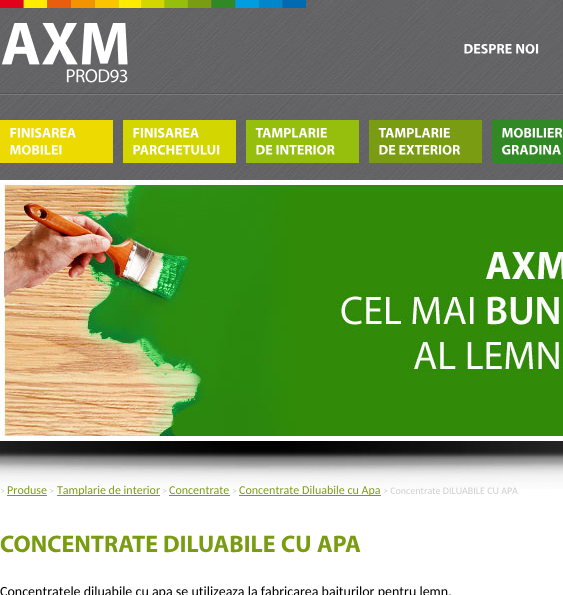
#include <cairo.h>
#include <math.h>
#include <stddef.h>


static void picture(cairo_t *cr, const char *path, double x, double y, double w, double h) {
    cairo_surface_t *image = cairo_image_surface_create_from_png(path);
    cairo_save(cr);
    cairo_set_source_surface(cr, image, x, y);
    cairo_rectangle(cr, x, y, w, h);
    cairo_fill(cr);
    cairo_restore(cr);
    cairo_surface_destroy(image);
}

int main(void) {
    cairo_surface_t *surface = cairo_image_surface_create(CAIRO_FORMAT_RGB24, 563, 595);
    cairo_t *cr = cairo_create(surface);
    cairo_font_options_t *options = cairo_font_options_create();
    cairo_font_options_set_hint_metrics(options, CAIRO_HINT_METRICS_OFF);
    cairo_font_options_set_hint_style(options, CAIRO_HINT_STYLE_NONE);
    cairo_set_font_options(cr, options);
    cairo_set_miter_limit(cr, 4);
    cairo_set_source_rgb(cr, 1, 1, 1);
    cairo_paint(cr);
    picture(cr, "img1.png", 0, 0, 563, 180);
    picture(cr, "img2.png", 0, 93, 563, 2);
    picture(cr, "img3.png", 0, 0, 306, 8);
    picture(cr, "img4.png", 1, 23, 127, 60);
    picture(cr, "img5.png", 464, 44, 48, 10);
    picture(cr, "img6.png", 516, 44, 23, 10);
    cairo_set_source_rgb(cr, 0.925, 0.855, 0);
    cairo_rectangle(cr, 0, 120, 113, 43);
    cairo_fill(cr);
    picture(cr, "img7.png", 10, 128, 66, 10);
    picture(cr, "img8.png", 10, 145, 52, 10);
    cairo_set_source_rgb(cr, 0.831, 0.839, 0);
    cairo_rectangle(cr, 123, 120, 113, 43);
    cairo_fill(cr);
    picture(cr, "img9.png", 133, 128, 66, 10);
    picture(cr, "img10.png", 133, 145, 87, 10);
    cairo_set_source_rgb(cr, 0.588, 0.749, 0.051);
    cairo_rectangle(cr, 246, 120, 113, 43);
    cairo_fill(cr);
    picture(cr, "img11.png", 255, 128, 72, 10);
    picture(cr, "img12.png", 256, 145, 17, 10);
    picture(cr, "img13.png", 276, 145, 59, 10);
    cairo_set_source_rgb(cr, 0.475, 0.612, 0.071);
    cairo_rectangle(cr, 369, 120, 113, 43);
    cairo_fill(cr);
    picture(cr, "img14.png", 378, 128, 72, 10);
    picture(cr, "img15.png", 379, 145, 17, 10);
    picture(cr, "img16.png", 399, 145, 61, 10);
    cairo_set_source_rgb(cr, 0.192, 0.537, 0.145);
    cairo_rectangle(cr, 492, 120, 71, 43);
    cairo_fill(cr);
    picture(cr, "img17.png", 502, 128, 61, 10);
    picture(cr, "img18.png", 502, 145, 59, 10);
    picture(cr, "img19.png", 0, 441, 563, 48);
    picture(cr, "img20.png", 0, 180, 563, 261);
    cairo_select_font_face(cr, "Carlito", CAIRO_FONT_SLANT_NORMAL, CAIRO_FONT_WEIGHT_NORMAL);
    cairo_set_font_size(cr, 10);
    cairo_set_source_rgb(cr, 0.8, 0.8, 0.8);
    cairo_move_to(cr, 0, 494);
    cairo_show_text(cr, ">");
    cairo_set_font_size(cr, 12);
    cairo_set_source_rgb(cr, 0.475, 0.612, 0.071);
    cairo_move_to(cr, 7, 494);
    cairo_show_text(cr, "Produse");
    cairo_rectangle(cr, 7, 495, 40, 1);
    cairo_fill(cr);
    cairo_set_font_size(cr, 10);
    cairo_set_source_rgb(cr, 0.8, 0.8, 0.8);
    cairo_move_to(cr, 49, 494);
    cairo_show_text(cr, ">");
    cairo_set_source_rgb(cr, 0.475, 0.612, 0.071);
    cairo_rectangle(cr, 57, 495, 103, 1);
    cairo_fill(cr);
    cairo_set_font_size(cr, 12);
    cairo_move_to(cr, 57, 494);
    cairo_show_text(cr, "Tamplarie de interior");
    cairo_set_font_size(cr, 10);
    cairo_set_source_rgb(cr, 0.8, 0.8, 0.8);
    cairo_move_to(cr, 162, 494);
    cairo_show_text(cr, ">");
    cairo_set_font_size(cr, 12);
    cairo_set_source_rgb(cr, 0.475, 0.612, 0.071);
    cairo_move_to(cr, 169, 494);
    cairo_show_text(cr, "Concentrate");
    cairo_rectangle(cr, 169, 495, 61, 1);
    cairo_fill(cr);
    cairo_set_font_size(cr, 10);
    cairo_set_source_rgb(cr, 0.8, 0.8, 0.8);
    cairo_move_to(cr, 232, 494);
    cairo_show_text(cr, ">");
    cairo_set_source_rgb(cr, 0.475, 0.612, 0.071);
    cairo_rectangle(cr, 239, 495, 142, 1);
    cairo_fill(cr);
    cairo_set_font_size(cr, 12);
    cairo_move_to(cr, 239, 494);
    cairo_show_text(cr, "Concentrate Diluabile cu Apa");
    cairo_set_font_size(cr, 10);
    cairo_set_source_rgb(cr, 0.8, 0.8, 0.8);
    cairo_move_to(cr, 383, 494);
    cairo_show_text(cr, "> Concentrate DILUABILE CU APA");
    picture(cr, "img21.png", 0, 535, 158, 18);
    picture(cr, "img22.png", 164, 535, 111, 18);
    picture(cr, "img23.png", 281, 535, 29, 18);
    picture(cr, "img24.png", 317, 535, 44, 17);
    cairo_set_font_size(cr, 14);
    cairo_set_source_rgb(cr, 0, 0, 0);
    cairo_move_to(cr, 0, 596);
    cairo_show_text(cr, "Concentratele diluabile cu apa se utilizeaza la fabricarea baiturilor pentru lemn.");
    cairo_surface_write_to_png(surface, "page.png");
    cairo_font_options_destroy(options);
    cairo_destroy(cr);
    cairo_surface_destroy(surface);
    return 0;
}
